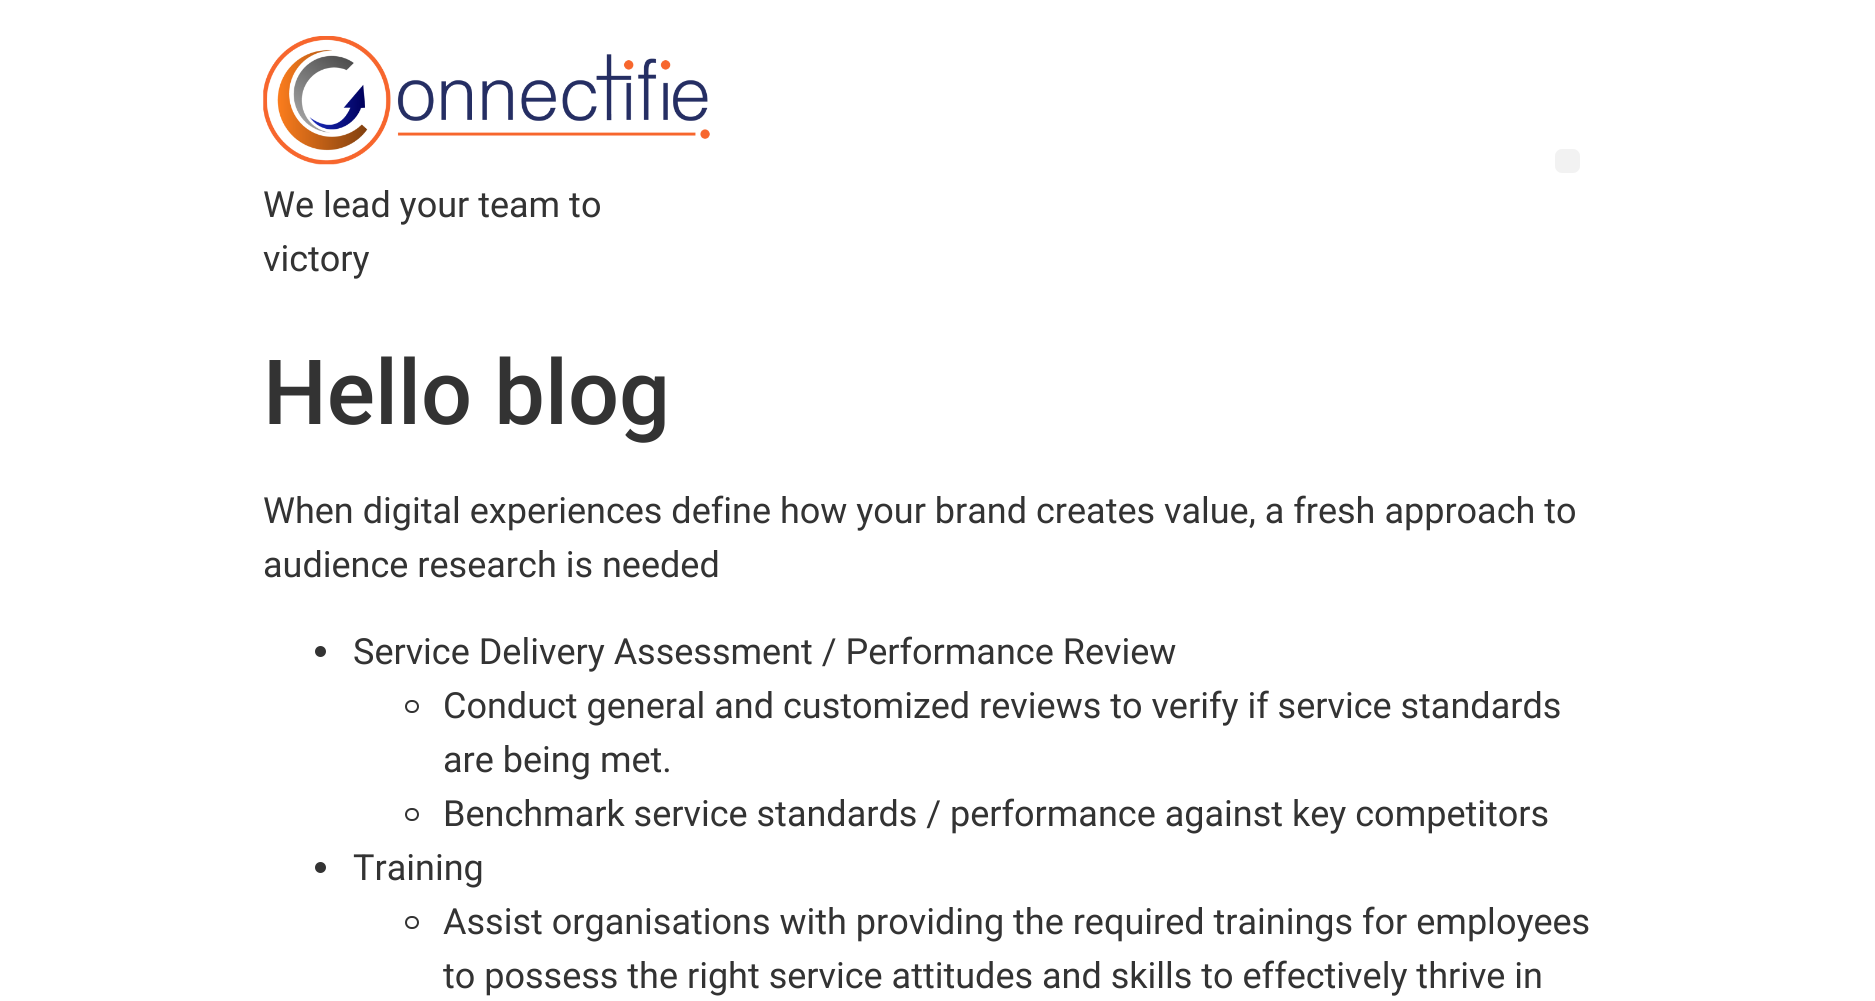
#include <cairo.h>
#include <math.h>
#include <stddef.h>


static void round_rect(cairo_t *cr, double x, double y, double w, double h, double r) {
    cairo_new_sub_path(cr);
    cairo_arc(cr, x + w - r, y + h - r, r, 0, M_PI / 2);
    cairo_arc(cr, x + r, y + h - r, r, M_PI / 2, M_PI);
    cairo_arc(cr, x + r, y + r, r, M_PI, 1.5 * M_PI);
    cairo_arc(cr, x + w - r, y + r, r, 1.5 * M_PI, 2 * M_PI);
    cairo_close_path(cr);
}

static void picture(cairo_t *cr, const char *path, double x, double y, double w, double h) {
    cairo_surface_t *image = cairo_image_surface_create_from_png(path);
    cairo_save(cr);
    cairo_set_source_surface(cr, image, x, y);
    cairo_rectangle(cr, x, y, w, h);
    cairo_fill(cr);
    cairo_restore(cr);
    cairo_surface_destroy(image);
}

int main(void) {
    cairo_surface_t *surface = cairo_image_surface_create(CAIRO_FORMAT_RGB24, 1875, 1001);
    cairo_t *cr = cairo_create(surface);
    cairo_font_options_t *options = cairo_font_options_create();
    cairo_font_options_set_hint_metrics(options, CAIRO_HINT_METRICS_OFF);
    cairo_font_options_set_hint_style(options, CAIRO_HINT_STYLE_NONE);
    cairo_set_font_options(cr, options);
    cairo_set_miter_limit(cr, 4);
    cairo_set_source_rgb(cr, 1, 1, 1);
    cairo_paint(cr);
    cairo_set_source_rgb(cr, 0.949, 0.949, 0.949);
    round_rect(cr, 1555, 149, 25, 24, 7);
    cairo_fill(cr);
    picture(cr, "img1.png", 263, 36, 447, 129);
    cairo_select_font_face(cr, "Roboto", CAIRO_FONT_SLANT_NORMAL, CAIRO_FONT_WEIGHT_NORMAL);
    cairo_set_font_size(cr, 36);
    cairo_set_source_rgb(cr, 0.2, 0.2, 0.2);
    cairo_move_to(cr, 263, 217);
    cairo_show_text(cr, "We lead your team to");
    cairo_move_to(cr, 263, 271);
    cairo_show_text(cr, "victory");
    cairo_select_font_face(cr, "Roboto Medium", CAIRO_FONT_SLANT_NORMAL, CAIRO_FONT_WEIGHT_NORMAL);
    cairo_set_font_size(cr, 90);
    cairo_move_to(cr, 263, 424);
    cairo_show_text(cr, "Hello blog");
    cairo_select_font_face(cr, "Roboto", CAIRO_FONT_SLANT_NORMAL, CAIRO_FONT_WEIGHT_NORMAL);
    cairo_set_font_size(cr, 36);
    cairo_move_to(cr, 263, 523);
    cairo_show_text(cr, "When digital experiences define how your brand creates value, a fresh approach to");
    cairo_move_to(cr, 263, 577);
    cairo_show_text(cr, "audience research is needed");
    cairo_new_path(cr);
    cairo_arc(cr, 320.5, 651.5, 5.5, 0, 2 * M_PI);
    cairo_fill(cr);
    cairo_move_to(cr, 353, 664);
    cairo_show_text(cr, "Service Delivery Assessment / Performance Review");
    round_rect(cr, 406, 701, 12, 11, 5.5);
    cairo_stroke(cr);
    cairo_move_to(cr, 443, 718);
    cairo_show_text(cr, "Conduct general and customized reviews to verify if service standards");
    cairo_move_to(cr, 443, 772);
    cairo_show_text(cr, "are being met.");
    round_rect(cr, 406, 809, 12, 11, 5.5);
    cairo_stroke(cr);
    cairo_move_to(cr, 443, 826);
    cairo_show_text(cr, "Benchmark service standards / performance against key competitors");
    cairo_new_path(cr);
    cairo_arc(cr, 320.5, 867.5, 5.5, 0, 2 * M_PI);
    cairo_fill(cr);
    cairo_move_to(cr, 353, 880);
    cairo_show_text(cr, "Training");
    round_rect(cr, 406, 917, 12, 11, 5.5);
    cairo_stroke(cr);
    cairo_move_to(cr, 443, 934);
    cairo_show_text(cr, "Assist organisations with providing the required trainings for employees");
    cairo_move_to(cr, 443, 988);
    cairo_show_text(cr, "to possess the right service attitudes and skills to effectively thrive in");
    cairo_surface_write_to_png(surface, "page.png");
    cairo_font_options_destroy(options);
    cairo_destroy(cr);
    cairo_surface_destroy(surface);
    return 0;
}
